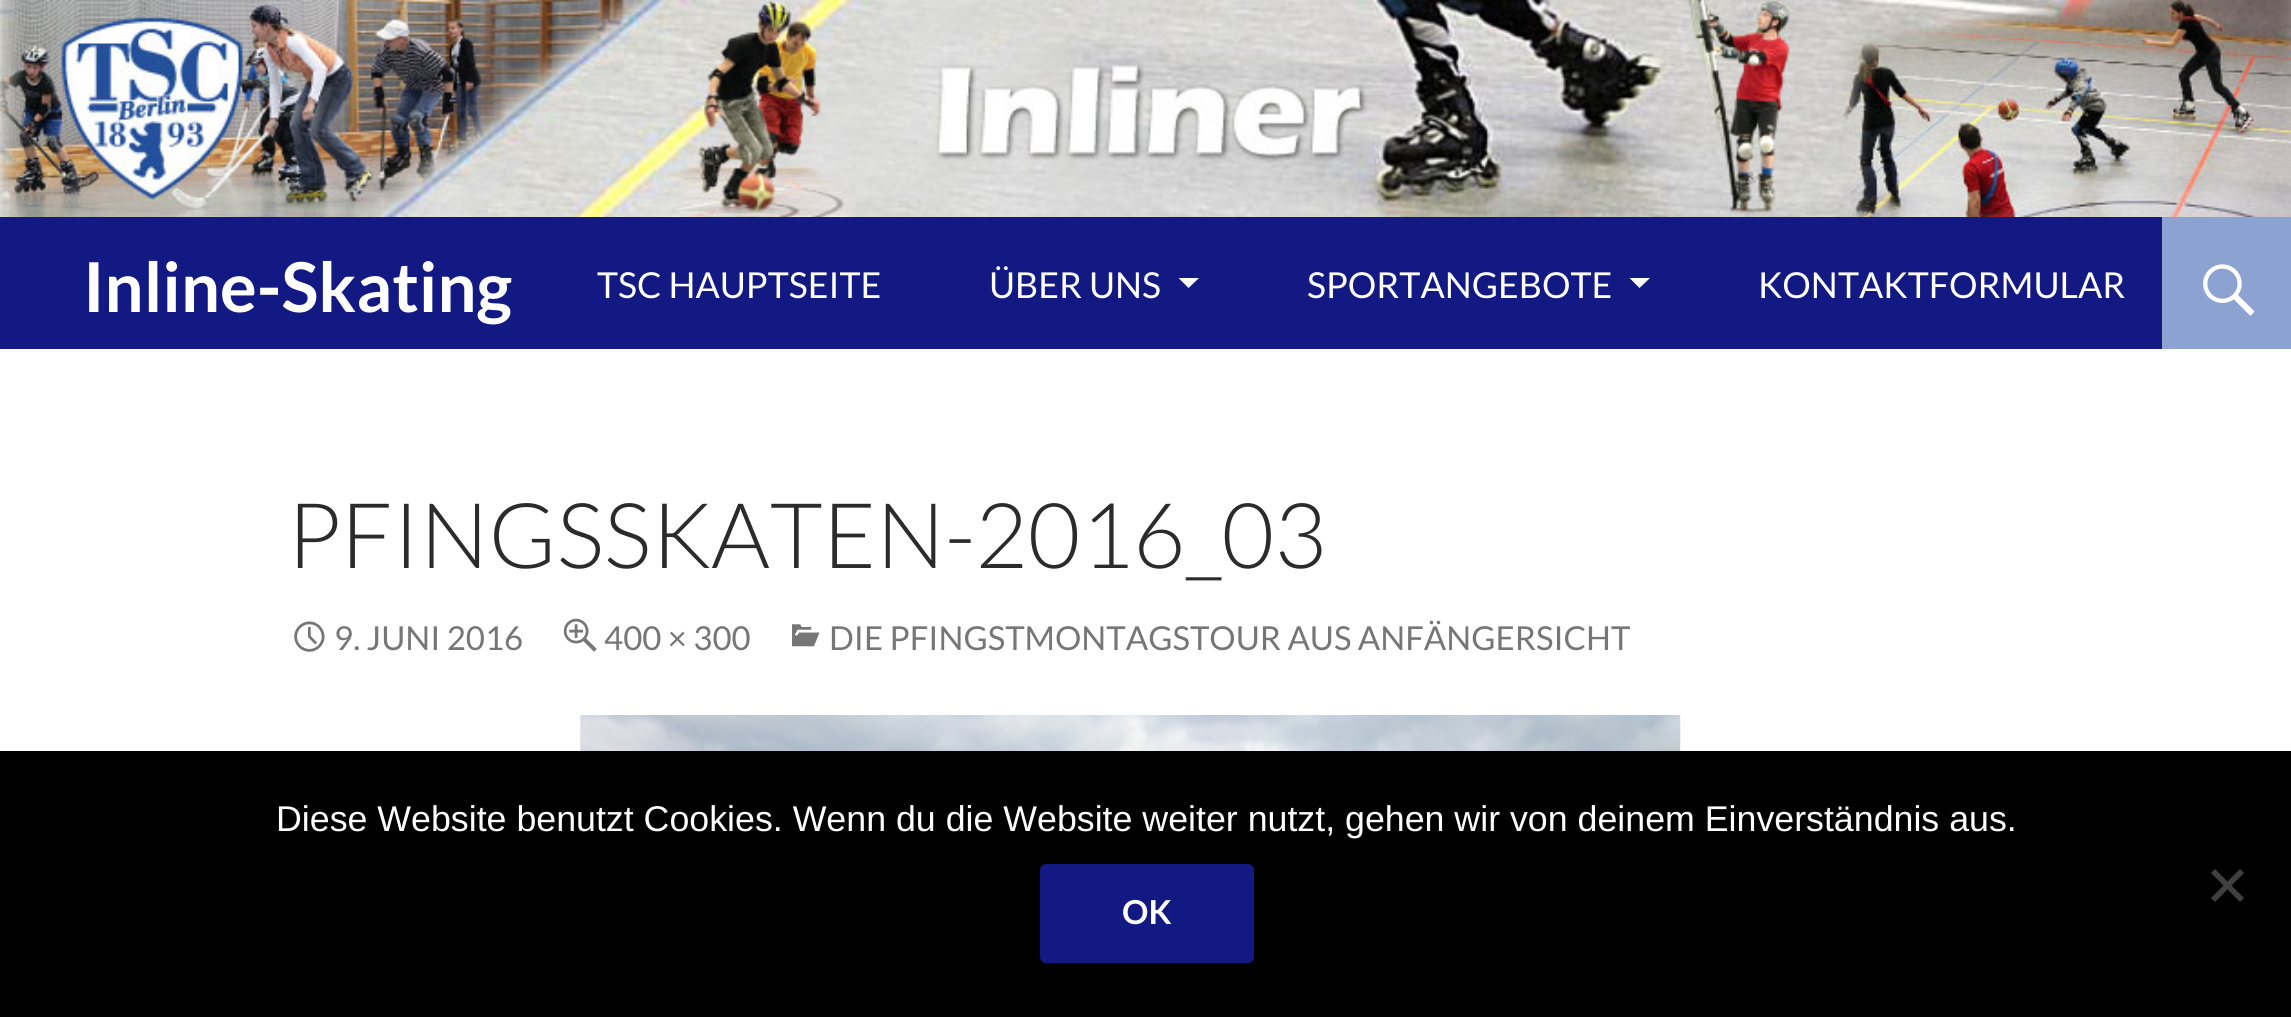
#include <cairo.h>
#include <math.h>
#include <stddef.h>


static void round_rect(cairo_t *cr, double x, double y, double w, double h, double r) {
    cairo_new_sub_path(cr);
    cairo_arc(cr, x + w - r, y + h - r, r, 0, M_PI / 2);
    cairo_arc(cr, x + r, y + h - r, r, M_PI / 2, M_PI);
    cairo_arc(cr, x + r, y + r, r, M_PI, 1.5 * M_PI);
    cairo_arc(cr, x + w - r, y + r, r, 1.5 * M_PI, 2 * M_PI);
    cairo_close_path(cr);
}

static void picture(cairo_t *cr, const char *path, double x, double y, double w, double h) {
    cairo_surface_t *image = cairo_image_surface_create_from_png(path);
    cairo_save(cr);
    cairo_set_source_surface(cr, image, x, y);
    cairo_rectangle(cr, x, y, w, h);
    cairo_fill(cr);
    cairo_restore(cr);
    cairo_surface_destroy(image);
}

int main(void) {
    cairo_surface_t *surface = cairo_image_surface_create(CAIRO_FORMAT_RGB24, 2291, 1017);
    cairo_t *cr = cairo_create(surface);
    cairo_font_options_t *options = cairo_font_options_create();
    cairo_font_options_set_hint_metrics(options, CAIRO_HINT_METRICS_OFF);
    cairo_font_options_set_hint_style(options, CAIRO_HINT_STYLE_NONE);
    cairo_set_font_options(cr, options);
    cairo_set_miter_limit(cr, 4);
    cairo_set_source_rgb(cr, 1, 1, 1);
    cairo_paint(cr);
    picture(cr, "img1.png", 0, 0, 2291, 217);
    cairo_set_source_rgb(cr, 0.078, 0.098, 0.514);
    cairo_rectangle(cr, 0, 217, 2162, 132);
    cairo_fill(cr);
    cairo_select_font_face(cr, "Lato", CAIRO_FONT_SLANT_NORMAL, CAIRO_FONT_WEIGHT_BOLD);
    cairo_set_font_size(cr, 68.75);
    cairo_set_source_rgb(cr, 1, 1, 1);
    cairo_move_to(cr, 83, 312);
    cairo_show_text(cr, "Inline-Skating");
    cairo_select_font_face(cr, "Lato", CAIRO_FONT_SLANT_NORMAL, CAIRO_FONT_WEIGHT_NORMAL);
    cairo_set_font_size(cr, 35.75);
    cairo_move_to(cr, 597, 298);
    cairo_show_text(cr, "TSC HAUPTSEITE");
    cairo_move_to(cr, 989, 298);
    cairo_show_text(cr, "ÜBER UNS");
    cairo_new_path(cr);
    cairo_move_to(cr, 1178.5, 278);
    cairo_line_to(cr, 1188.5, 288);
    cairo_line_to(cr, 1199, 278);
    cairo_close_path(cr);
    cairo_fill(cr);
    cairo_move_to(cr, 1307, 298);
    cairo_show_text(cr, "SPORTANGEBOTE");
    cairo_new_path(cr);
    cairo_move_to(cr, 1629.5, 278);
    cairo_line_to(cr, 1639.5, 288);
    cairo_line_to(cr, 1650, 278);
    cairo_close_path(cr);
    cairo_fill(cr);
    cairo_move_to(cr, 1758, 298);
    cairo_show_text(cr, "KONTAKTFORMULAR");
    cairo_set_source_rgb(cr, 0.549, 0.635, 0.82);
    cairo_rectangle(cr, 2162, 217, 129, 132);
    cairo_fill(cr);
    picture(cr, "img2.png", 2203, 264, 52, 52);
    cairo_select_font_face(cr, "Lato Light", CAIRO_FONT_SLANT_NORMAL, CAIRO_FONT_WEIGHT_NORMAL);
    cairo_set_font_size(cr, 90.75);
    cairo_set_source_rgb(cr, 0.169, 0.169, 0.169);
    cairo_move_to(cr, 287, 568);
    cairo_show_text(cr, "PFINGSSKATEN-2016_03");
    picture(cr, "img3.png", 294, 621, 31, 31);
    cairo_select_font_face(cr, "Lato", CAIRO_FONT_SLANT_NORMAL, CAIRO_FONT_WEIGHT_NORMAL);
    cairo_set_font_size(cr, 33);
    cairo_set_source_rgb(cr, 0.463, 0.463, 0.463);
    cairo_move_to(cr, 334, 650);
    cairo_show_text(cr, "9. JUNI 2016");
    picture(cr, "img4.png", 563, 618, 34, 34);
    cairo_move_to(cr, 604, 650);
    cairo_show_text(cr, "400 × 300");
    picture(cr, "img5.png", 792, 624, 28, 23);
    cairo_move_to(cr, 829, 650);
    cairo_show_text(cr, "DIE PFINGSTMONTAGSTOUR AUS ANFÄNGERSICHT");
    picture(cr, "img6.png", 580, 715, 1101, 36);
    cairo_set_source_rgb(cr, 0, 0, 0);
    cairo_rectangle(cr, 0, 751, 2291, 266);
    cairo_fill(cr);
    cairo_select_font_face(cr, "Liberation Sans", CAIRO_FONT_SLANT_NORMAL, CAIRO_FONT_WEIGHT_NORMAL);
    cairo_set_font_size(cr, 35.75);
    cairo_set_source_rgb(cr, 1, 1, 1);
    cairo_move_to(cr, 276, 831);
    cairo_show_text(cr, "Diese Website benutzt Cookies. Wenn du die Website weiter nutzt, gehen wir von deinem Einverständnis aus.");
    cairo_set_source_rgb(cr, 0.251, 0.251, 0.251);
    cairo_new_path(cr);
    cairo_move_to(cr, 2240, 869);
    cairo_line_to(cr, 2244, 873);
    cairo_line_to(cr, 2215, 902);
    cairo_line_to(cr, 2211, 898);
    cairo_close_path(cr);
    cairo_fill(cr);
    cairo_new_path(cr);
    cairo_move_to(cr, 2211, 873);
    cairo_line_to(cr, 2215, 869);
    cairo_line_to(cr, 2244, 898);
    cairo_line_to(cr, 2240, 902);
    cairo_close_path(cr);
    cairo_fill(cr);
    cairo_set_source_rgb(cr, 0.078, 0.098, 0.514);
    round_rect(cr, 1040, 864, 214, 99, 6);
    cairo_fill(cr);
    cairo_select_font_face(cr, "Lato", CAIRO_FONT_SLANT_NORMAL, CAIRO_FONT_WEIGHT_BOLD);
    cairo_set_font_size(cr, 33);
    cairo_set_source_rgb(cr, 1, 1, 1);
    cairo_move_to(cr, 1122, 924);
    cairo_show_text(cr, "OK");
    cairo_surface_write_to_png(surface, "page.png");
    cairo_font_options_destroy(options);
    cairo_destroy(cr);
    cairo_surface_destroy(surface);
    return 0;
}
